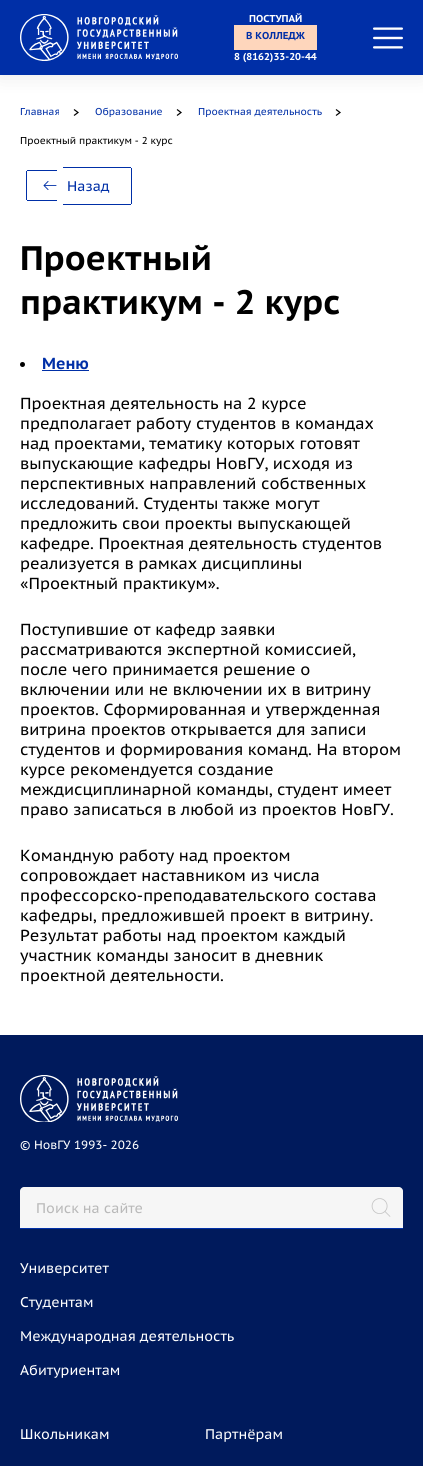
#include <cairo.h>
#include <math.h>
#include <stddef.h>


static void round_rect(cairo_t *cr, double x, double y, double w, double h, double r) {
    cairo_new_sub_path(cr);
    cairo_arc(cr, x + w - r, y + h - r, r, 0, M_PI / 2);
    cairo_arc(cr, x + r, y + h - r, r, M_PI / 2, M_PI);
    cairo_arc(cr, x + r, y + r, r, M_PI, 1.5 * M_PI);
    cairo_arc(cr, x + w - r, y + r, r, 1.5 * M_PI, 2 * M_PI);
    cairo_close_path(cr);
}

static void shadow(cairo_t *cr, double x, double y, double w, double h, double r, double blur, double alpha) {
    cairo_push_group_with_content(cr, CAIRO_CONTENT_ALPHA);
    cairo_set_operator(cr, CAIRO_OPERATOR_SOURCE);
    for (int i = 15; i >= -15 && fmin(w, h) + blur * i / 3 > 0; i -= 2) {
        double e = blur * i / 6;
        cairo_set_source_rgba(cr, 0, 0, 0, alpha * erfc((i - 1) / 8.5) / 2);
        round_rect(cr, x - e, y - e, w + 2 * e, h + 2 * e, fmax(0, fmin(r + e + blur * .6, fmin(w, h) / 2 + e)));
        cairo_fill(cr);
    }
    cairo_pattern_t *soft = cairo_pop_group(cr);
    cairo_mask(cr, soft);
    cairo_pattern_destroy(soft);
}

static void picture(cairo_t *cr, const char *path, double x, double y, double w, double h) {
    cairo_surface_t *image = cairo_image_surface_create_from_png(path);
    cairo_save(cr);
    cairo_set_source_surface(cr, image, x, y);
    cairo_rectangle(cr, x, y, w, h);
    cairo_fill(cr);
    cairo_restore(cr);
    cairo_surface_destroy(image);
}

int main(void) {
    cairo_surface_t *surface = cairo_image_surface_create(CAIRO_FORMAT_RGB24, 423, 1466);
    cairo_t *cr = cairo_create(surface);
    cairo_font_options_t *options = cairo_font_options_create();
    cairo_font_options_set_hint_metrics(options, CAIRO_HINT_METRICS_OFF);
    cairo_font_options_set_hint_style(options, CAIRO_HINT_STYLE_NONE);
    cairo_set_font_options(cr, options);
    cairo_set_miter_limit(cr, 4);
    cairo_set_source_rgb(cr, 1, 1, 1);
    cairo_paint(cr);
    cairo_set_source_rgb(cr, 0, 0, 0);
    shadow(cr, 0, 0, 423, 75, 0, 10, 0.1);
    cairo_set_source_rgb(cr, 0, 0.184, 0.655);
    cairo_rectangle(cr, 0, 0, 423, 75);
    cairo_fill(cr);
    picture(cr, "img1.png", 20, 14, 158, 47);
    cairo_select_font_face(cr, "PT Sans Caption", CAIRO_FONT_SLANT_NORMAL, CAIRO_FONT_WEIGHT_BOLD);
    cairo_set_font_size(cr, 10);
    cairo_set_source_rgb(cr, 1, 1, 1);
    cairo_move_to(cr, 249, 22);
    cairo_show_text(cr, "ПОСТУПАЙ");
    cairo_set_source_rgb(cr, 0.996, 0.839, 0.737);
    cairo_rectangle(cr, 234, 25, 83, 25);
    cairo_fill(cr);
    cairo_set_source_rgb(cr, 0, 0.184, 0.655);
    cairo_move_to(cr, 246, 39);
    cairo_show_text(cr, "В КОЛЛЕДЖ");
    cairo_set_source_rgb(cr, 1, 1, 1);
    cairo_move_to(cr, 234, 60);
    cairo_show_text(cr, "8 (8162)33-20-44");
    picture(cr, "img2.png", 373, 27, 30, 22);
    cairo_select_font_face(cr, "PT Sans Caption", CAIRO_FONT_SLANT_NORMAL, CAIRO_FONT_WEIGHT_NORMAL);
    cairo_set_source_rgb(cr, 0, 0.184, 0.655);
    cairo_move_to(cr, 20, 115);
    cairo_show_text(cr, "Главная");
    cairo_new_path(cr);
    cairo_move_to(cr, 74, 115.5);
    cairo_line_to(cr, 78, 112.5);
    cairo_line_to(cr, 74, 109.5);
    cairo_set_source_rgb(cr, 0, 0, 0);
    cairo_set_line_width(cr, 1.2);
    cairo_stroke(cr);
    cairo_set_source_rgb(cr, 0, 0.184, 0.655);
    cairo_move_to(cr, 95, 115);
    cairo_show_text(cr, "Образование");
    cairo_new_path(cr);
    cairo_move_to(cr, 177, 115.5);
    cairo_line_to(cr, 181, 112.5);
    cairo_line_to(cr, 177, 109.5);
    cairo_set_source_rgb(cr, 0, 0, 0);
    cairo_stroke(cr);
    cairo_set_source_rgb(cr, 0, 0.184, 0.655);
    cairo_move_to(cr, 198, 115);
    cairo_show_text(cr, "Проектная деятельность");
    cairo_new_path(cr);
    cairo_move_to(cr, 336, 115.5);
    cairo_line_to(cr, 340, 112.5);
    cairo_line_to(cr, 336, 109.5);
    cairo_set_source_rgb(cr, 0, 0, 0);
    cairo_stroke(cr);
    cairo_move_to(cr, 20, 144);
    cairo_show_text(cr, "Проектный практикум - 2 курс");
    picture(cr, "img3.png", 43, 181, 14, 9);
    cairo_set_font_size(cr, 14);
    cairo_set_source_rgb(cr, 0, 0.184, 0.655);
    cairo_move_to(cr, 67, 191);
    cairo_show_text(cr, "Назад");
    cairo_rectangle(cr, 27, 170, 30, 1);
    cairo_fill(cr);
    cairo_rectangle(cr, 27, 200, 30, 1);
    cairo_fill(cr);
    cairo_rectangle(cr, 26, 171, 1, 29);
    cairo_fill(cr);
    cairo_rectangle(cr, 63, 167, 68, 1);
    cairo_fill(cr);
    cairo_rectangle(cr, 63, 204, 68, 1);
    cairo_fill(cr);
    cairo_rectangle(cr, 131, 168, 1, 36);
    cairo_fill(cr);
    cairo_select_font_face(cr, "PT Sans Caption", CAIRO_FONT_SLANT_NORMAL, CAIRO_FONT_WEIGHT_BOLD);
    cairo_set_font_size(cr, 34);
    cairo_set_source_rgb(cr, 0, 0, 0);
    cairo_move_to(cr, 20, 270);
    cairo_show_text(cr, "Проектный");
    cairo_move_to(cr, 20, 314);
    cairo_show_text(cr, "практикум - 2 курс");
    cairo_new_path(cr);
    cairo_arc(cr, 22.5, 364.5, 2.5, 0, 2 * M_PI);
    cairo_fill(cr);
    cairo_set_font_size(cr, 16);
    cairo_set_source_rgb(cr, 0, 0.184, 0.655);
    cairo_move_to(cr, 42, 369);
    cairo_show_text(cr, "Меню");
    cairo_rectangle(cr, 42, 370, 47, 1);
    cairo_fill(cr);
    cairo_select_font_face(cr, "PT Sans Caption", CAIRO_FONT_SLANT_NORMAL, CAIRO_FONT_WEIGHT_NORMAL);
    cairo_set_source_rgb(cr, 0, 0, 0);
    cairo_move_to(cr, 20, 409);
    cairo_show_text(cr, "Проектная деятельность на 2 курсе");
    cairo_move_to(cr, 20, 429);
    cairo_show_text(cr, "предполагает работу студентов в командах");
    cairo_move_to(cr, 20, 449);
    cairo_show_text(cr, "над проектами, тематику которых готовят");
    cairo_move_to(cr, 20, 469);
    cairo_show_text(cr, "выпускающие кафедры НовГУ, исходя из");
    cairo_move_to(cr, 20, 489);
    cairo_show_text(cr, "перспективных направлений собственных");
    cairo_move_to(cr, 20, 509);
    cairo_show_text(cr, "исследований. Студенты также могут");
    cairo_move_to(cr, 20, 529);
    cairo_show_text(cr, "предложить свои проекты выпускающей");
    cairo_move_to(cr, 20, 549);
    cairo_show_text(cr, "кафедре. Проектная деятельность студентов");
    cairo_move_to(cr, 20, 569);
    cairo_show_text(cr, "реализуется в рамках дисциплины");
    cairo_move_to(cr, 20, 589);
    cairo_show_text(cr, "«Проектный практикум».");
    cairo_move_to(cr, 20, 635);
    cairo_show_text(cr, "Поступившие от кафедр заявки");
    cairo_move_to(cr, 20, 655);
    cairo_show_text(cr, "рассматриваются экспертной комиссией,");
    cairo_move_to(cr, 20, 675);
    cairo_show_text(cr, "после чего принимается решение о");
    cairo_move_to(cr, 20, 695);
    cairo_show_text(cr, "включении или не включении их в витрину");
    cairo_move_to(cr, 20, 715);
    cairo_show_text(cr, "проектов. Сформированная и утвержденная");
    cairo_move_to(cr, 20, 735);
    cairo_show_text(cr, "витрина проектов открывается для записи");
    cairo_move_to(cr, 20, 755);
    cairo_show_text(cr, "студентов и формирования команд. На втором");
    cairo_move_to(cr, 20, 775);
    cairo_show_text(cr, "курсе рекомендуется создание");
    cairo_move_to(cr, 20, 795);
    cairo_show_text(cr, "междисциплинарной команды, студент имеет");
    cairo_move_to(cr, 20, 815);
    cairo_show_text(cr, "право записаться в любой из проектов НовГУ.");
    cairo_move_to(cr, 20, 861);
    cairo_show_text(cr, "Командную работу над проектом");
    cairo_move_to(cr, 20, 881);
    cairo_show_text(cr, "сопровождает наставником из числа");
    cairo_move_to(cr, 20, 901);
    cairo_show_text(cr, "профессорско-преподавательского состава");
    cairo_move_to(cr, 20, 921);
    cairo_show_text(cr, "кафедры, предложившей проект в витрину.");
    cairo_move_to(cr, 20, 941);
    cairo_show_text(cr, "Результат работы над проектом каждый");
    cairo_move_to(cr, 20, 961);
    cairo_show_text(cr, "участник команды заносит в дневник");
    cairo_move_to(cr, 20, 981);
    cairo_show_text(cr, "проектной деятельности.");
    cairo_set_source_rgb(cr, 0, 0.102, 0.361);
    cairo_rectangle(cr, 0, 1035, 423, 431);
    cairo_fill(cr);
    picture(cr, "img4.png", 20, 1075, 158, 47);
    cairo_set_font_size(cr, 12);
    cairo_set_source_rgb(cr, 1, 1, 1);
    cairo_move_to(cr, 20, 1149);
    cairo_show_text(cr, "© НовГУ 1993- 2026");
    cairo_set_source_rgb(cr, 0.961, 0.961, 0.961);
    cairo_new_path(cr);
    cairo_move_to(cr, 24, 1187);
    cairo_line_to(cr, 399, 1187);
    cairo_curve_to(cr, 401, 1187, 403, 1189, 403, 1191);
    cairo_line_to(cr, 403, 1229);
    cairo_line_to(cr, 20, 1229);
    cairo_line_to(cr, 20, 1191);
    cairo_curve_to(cr, 20, 1189, 22, 1187, 24, 1187);
    cairo_close_path(cr);
    cairo_fill(cr);
    cairo_set_source_rgb(cr, 0, 0.184, 0.655);
    cairo_rectangle(cr, 20, 1228, 383, 1);
    cairo_fill(cr);
    cairo_set_font_size(cr, 14);
    cairo_set_source_rgb(cr, 0.725, 0.725, 0.725);
    cairo_move_to(cr, 36, 1213);
    cairo_show_text(cr, "Поиск на сайте");
    picture(cr, "img5.png", 371, 1198, 20, 19);
    cairo_set_source_rgb(cr, 1, 1, 1);
    cairo_move_to(cr, 20, 1273);
    cairo_show_text(cr, "Университет");
    cairo_move_to(cr, 20, 1307);
    cairo_show_text(cr, "Студентам");
    cairo_move_to(cr, 20, 1341);
    cairo_show_text(cr, "Международная деятельность");
    cairo_move_to(cr, 20, 1375);
    cairo_show_text(cr, "Абитуриентам");
    cairo_move_to(cr, 20, 1439);
    cairo_show_text(cr, "Школьникам");
    cairo_move_to(cr, 205, 1439);
    cairo_show_text(cr, "Партнёрам");
    cairo_surface_write_to_png(surface, "page.png");
    cairo_font_options_destroy(options);
    cairo_destroy(cr);
    cairo_surface_destroy(surface);
    return 0;
}
